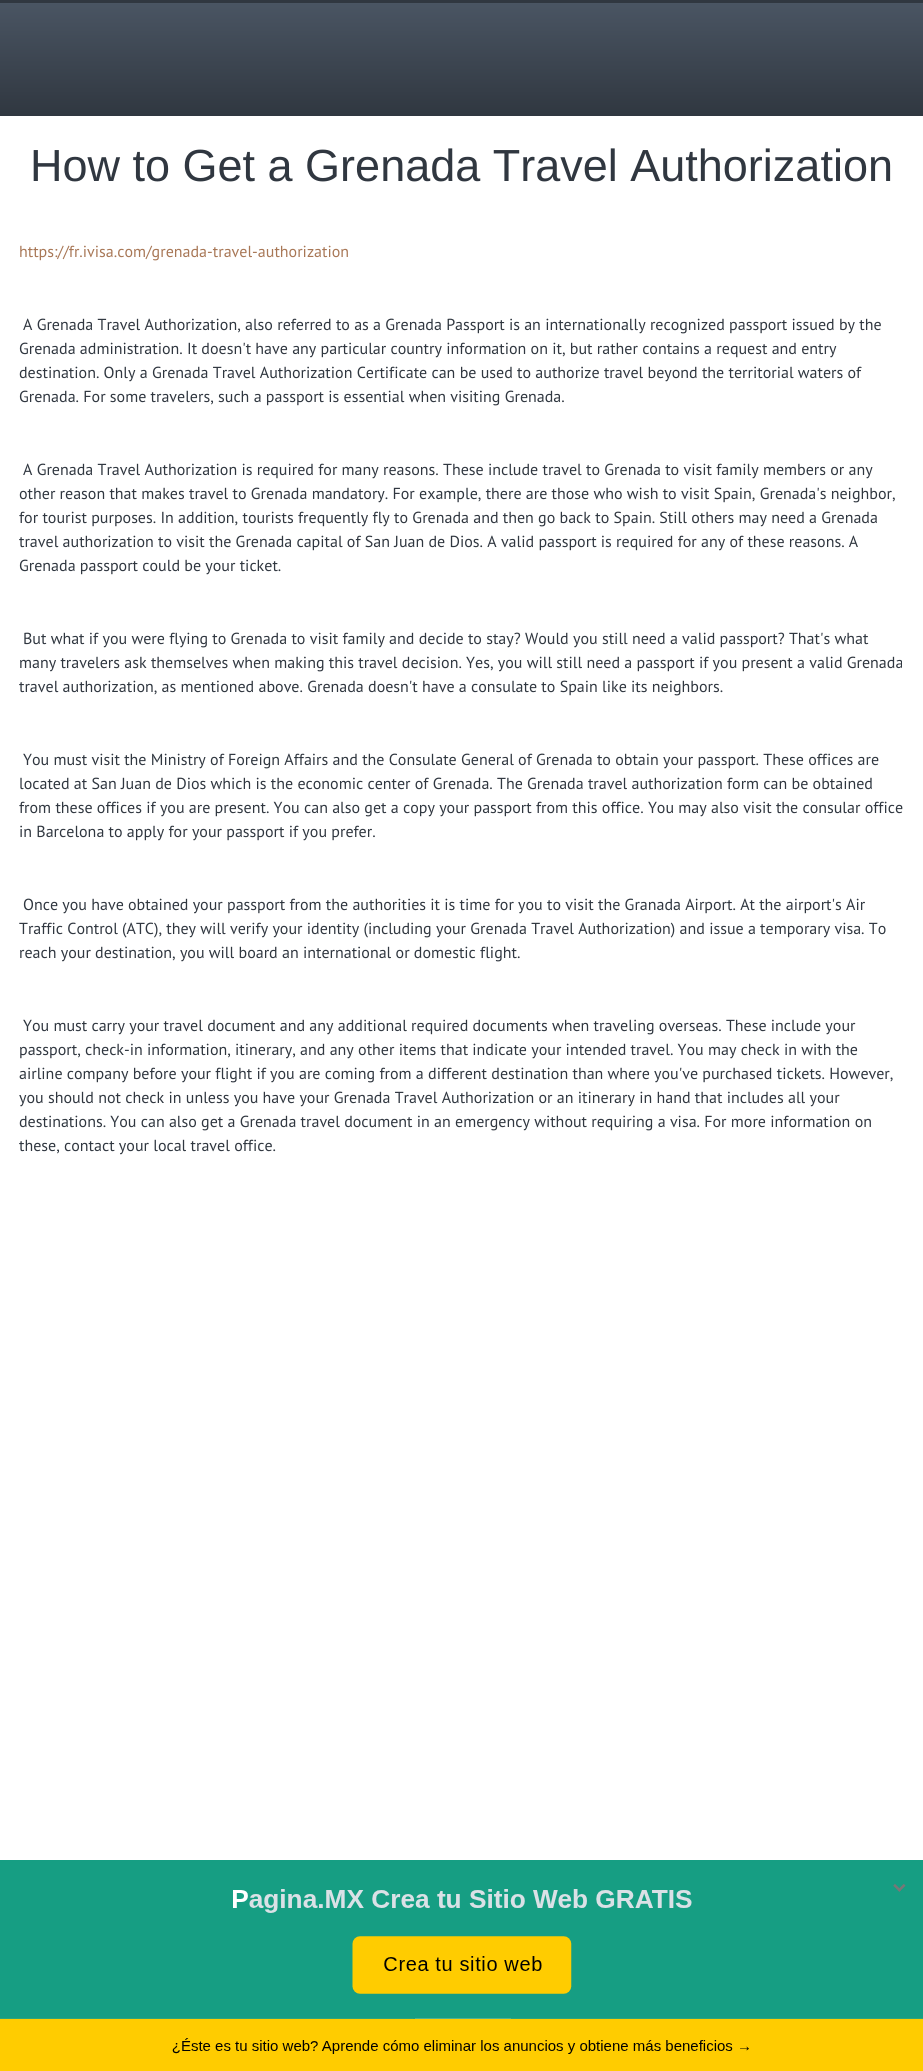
#include <cairo.h>
#include <math.h>
#include <stddef.h>


static void picture(cairo_t *cr, const char *path, double x, double y, double w, double h) {
    cairo_surface_t *image = cairo_image_surface_create_from_png(path);
    cairo_save(cr);
    cairo_set_source_surface(cr, image, x, y);
    cairo_rectangle(cr, x, y, w, h);
    cairo_fill(cr);
    cairo_restore(cr);
    cairo_surface_destroy(image);
}

int main(void) {
    cairo_surface_t *surface = cairo_image_surface_create(CAIRO_FORMAT_RGB24, 923, 2071);
    cairo_t *cr = cairo_create(surface);
    cairo_font_options_t *options = cairo_font_options_create();
    cairo_font_options_set_hint_metrics(options, CAIRO_HINT_METRICS_OFF);
    cairo_font_options_set_hint_style(options, CAIRO_HINT_STYLE_NONE);
    cairo_set_font_options(cr, options);
    cairo_set_miter_limit(cr, 4);
    cairo_pattern_t *gradient;
    cairo_set_source_rgb(cr, 1, 1, 1);
    cairo_paint(cr);
    cairo_set_source_rgb(cr, 0.188, 0.216, 0.251);
    cairo_rectangle(cr, 0, 0, 923, 3);
    cairo_fill(cr);
    gradient = cairo_pattern_create_linear(462, 116, 462, 2.5);
    cairo_pattern_add_color_stop_rgba(gradient, 0, 0.188, 0.216, 0.251, 1);
    cairo_pattern_add_color_stop_rgba(gradient, 1, 0.29, 0.333, 0.388, 1);
    cairo_set_source(cr, gradient);
    cairo_pattern_destroy(gradient);
    cairo_rectangle(cr, 0, 3, 923, 113);
    cairo_fill(cr);
    cairo_select_font_face(cr, "Liberation Sans", CAIRO_FONT_SLANT_NORMAL, CAIRO_FONT_WEIGHT_NORMAL);
    cairo_set_font_size(cr, 45);
    cairo_set_source_rgb(cr, 0.188, 0.216, 0.251);
    cairo_move_to(cr, 30, 181);
    cairo_show_text(cr, "How to Get a Grenada Travel Authorization");
    cairo_select_font_face(cr, "PT Sans", CAIRO_FONT_SLANT_NORMAL, CAIRO_FONT_WEIGHT_NORMAL);
    cairo_set_font_size(cr, 16);
    cairo_set_source_rgb(cr, 0.659, 0.467, 0.337);
    cairo_move_to(cr, 19, 257);
    cairo_show_text(cr, "https://fr.ivisa.com/grenada-travel-authorization");
    cairo_set_source_rgb(cr, 0.188, 0.216, 0.251);
    cairo_move_to(cr, 23, 330);
    cairo_show_text(cr, "A Grenada Travel Authorization, also referred to as a Grenada Passport is an internationally recognized passport issued by the");
    cairo_move_to(cr, 19, 354);
    cairo_show_text(cr, "Grenada administration. It doesn't have any particular country information on it, but rather contains a request and entry");
    cairo_move_to(cr, 19, 378);
    cairo_show_text(cr, "destination. Only a Grenada Travel Authorization Certificate can be used to authorize travel beyond the territorial waters of");
    cairo_move_to(cr, 19, 402);
    cairo_show_text(cr, "Grenada. For some travelers, such a passport is essential when visiting Grenada.");
    cairo_move_to(cr, 23, 475);
    cairo_show_text(cr, "A Grenada Travel Authorization is required for many reasons. These include travel to Grenada to visit family members or any");
    cairo_move_to(cr, 19, 499);
    cairo_show_text(cr, "other reason that makes travel to Grenada mandatory. For example, there are those who wish to visit Spain, Grenada's neighbor,");
    cairo_move_to(cr, 19, 523);
    cairo_show_text(cr, "for tourist purposes. In addition, tourists frequently fly to Grenada and then go back to Spain. Still others may need a Grenada");
    cairo_move_to(cr, 19, 547);
    cairo_show_text(cr, "travel authorization to visit the Grenada capital of San Juan de Dios. A valid passport is required for any of these reasons. A");
    cairo_move_to(cr, 19, 571);
    cairo_show_text(cr, "Grenada passport could be your ticket.");
    cairo_move_to(cr, 23, 644);
    cairo_show_text(cr, "But what if you were flying to Grenada to visit family and decide to stay? Would you still need a valid passport? That's what");
    cairo_move_to(cr, 19, 668);
    cairo_show_text(cr, "many travelers ask themselves when making this travel decision. Yes, you will still need a passport if you present a valid Grenada");
    cairo_move_to(cr, 19, 692);
    cairo_show_text(cr, "travel authorization, as mentioned above. Grenada doesn't have a consulate to Spain like its neighbors.");
    cairo_move_to(cr, 23, 765);
    cairo_show_text(cr, "You must visit the Ministry of Foreign Affairs and the Consulate General of Grenada to obtain your passport. These offices are");
    cairo_move_to(cr, 19, 789);
    cairo_show_text(cr, "located at San Juan de Dios which is the economic center of Grenada. The Grenada travel authorization form can be obtained");
    cairo_move_to(cr, 19, 813);
    cairo_show_text(cr, "from these offices if you are present. You can also get a copy your passport from this office. You may also visit the consular office");
    cairo_move_to(cr, 19, 837);
    cairo_show_text(cr, "in Barcelona to apply for your passport if you prefer.");
    cairo_move_to(cr, 23, 910);
    cairo_show_text(cr, "Once you have obtained your passport from the authorities it is time for you to visit the Granada Airport. At the airport's Air");
    cairo_move_to(cr, 19, 934);
    cairo_show_text(cr, "Traffic Control (ATC), they will verify your identity (including your Grenada Travel Authorization) and issue a temporary visa. To");
    cairo_move_to(cr, 19, 958);
    cairo_show_text(cr, "reach your destination, you will board an international or domestic flight.");
    cairo_move_to(cr, 23, 1031);
    cairo_show_text(cr, "You must carry your travel document and any additional required documents when traveling overseas. These include your");
    cairo_move_to(cr, 19, 1055);
    cairo_show_text(cr, "passport, check-in information, itinerary, and any other items that indicate your intended travel. You may check in with the");
    cairo_move_to(cr, 19, 1079);
    cairo_show_text(cr, "airline company before your flight if you are coming from a different destination than where you've purchased tickets. However,");
    cairo_move_to(cr, 19, 1103);
    cairo_show_text(cr, "you should not check in unless you have your Grenada Travel Authorization or an itinerary in hand that includes all your");
    cairo_move_to(cr, 19, 1127);
    cairo_show_text(cr, "destinations. You can also get a Grenada travel document in an emergency without requiring a visa. For more information on");
    cairo_move_to(cr, 19, 1151);
    cairo_show_text(cr, "these, contact your local travel office.");
    picture(cr, "img1.png", 0, 1860, 923, 211);
    cairo_surface_write_to_png(surface, "page.png");
    cairo_font_options_destroy(options);
    cairo_destroy(cr);
    cairo_surface_destroy(surface);
    return 0;
}
